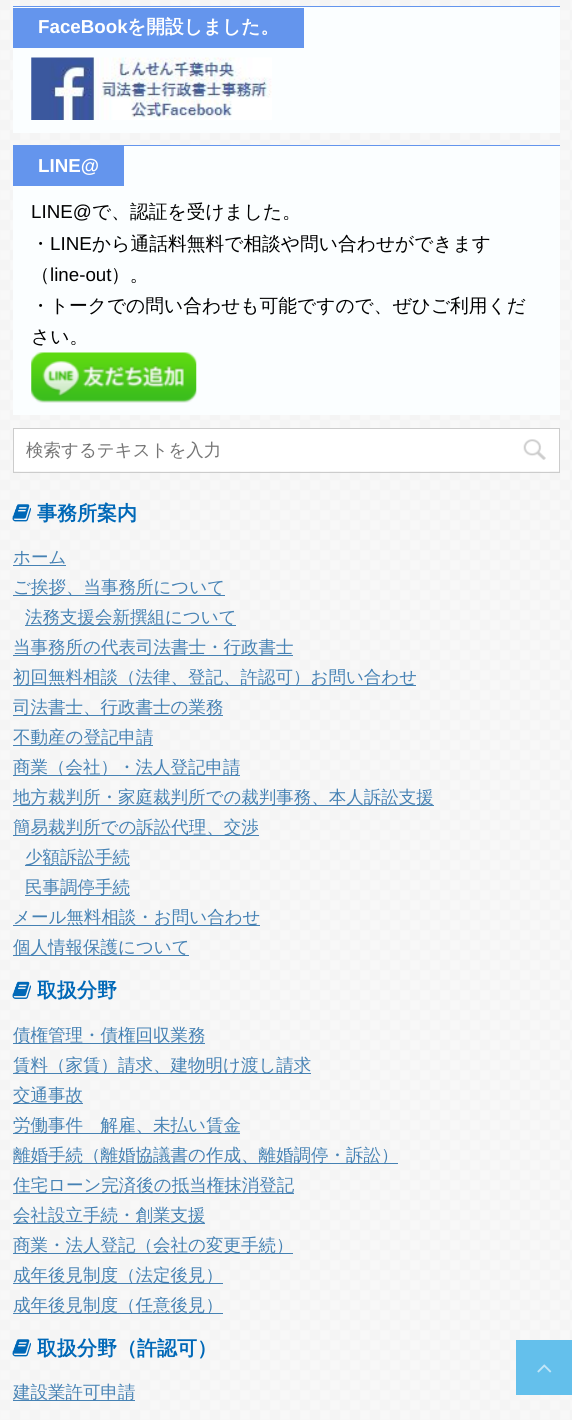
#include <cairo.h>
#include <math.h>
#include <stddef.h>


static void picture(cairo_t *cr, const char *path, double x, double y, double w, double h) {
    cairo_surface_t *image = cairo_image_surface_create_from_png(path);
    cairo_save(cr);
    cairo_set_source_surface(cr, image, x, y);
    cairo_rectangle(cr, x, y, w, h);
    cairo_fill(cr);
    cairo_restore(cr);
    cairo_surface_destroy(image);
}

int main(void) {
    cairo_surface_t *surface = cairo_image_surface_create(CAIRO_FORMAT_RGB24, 572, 1420);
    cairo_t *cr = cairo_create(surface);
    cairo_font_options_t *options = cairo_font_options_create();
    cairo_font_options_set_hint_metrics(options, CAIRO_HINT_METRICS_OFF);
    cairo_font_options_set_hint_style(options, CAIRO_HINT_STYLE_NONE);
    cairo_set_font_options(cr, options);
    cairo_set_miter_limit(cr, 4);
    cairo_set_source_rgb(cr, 1, 1, 1);
    cairo_paint(cr);
    picture(cr, "img1.png", 0, 0, 572, 1420);
    cairo_set_source_rgb(cr, 0.984, 0.996, 1);
    cairo_rectangle(cr, 13, 7, 547, 126);
    cairo_fill(cr);
    cairo_set_source_rgb(cr, 0.392, 0.584, 0.929);
    cairo_rectangle(cr, 13, 6, 547, 1);
    cairo_fill(cr);
    cairo_rectangle(cr, 13, 8, 291, 40);
    cairo_fill(cr);
    cairo_select_font_face(cr, "Liberation Sans", CAIRO_FONT_SLANT_NORMAL, CAIRO_FONT_WEIGHT_BOLD);
    cairo_set_font_size(cr, 18.75);
    cairo_set_source_rgb(cr, 1, 1, 1);
    cairo_move_to(cr, 38, 33);
    cairo_show_text(cr, "FaceBook");
    cairo_select_font_face(cr, "WenQuanYi Zen Hei", CAIRO_FONT_SLANT_NORMAL, CAIRO_FONT_WEIGHT_BOLD);
    cairo_move_to(cr, 127, 33);
    cairo_show_text(cr, "を開設しました。");
    picture(cr, "img2.png", 31, 57, 241, 63);
    cairo_set_source_rgb(cr, 0.984, 0.996, 1);
    cairo_rectangle(cr, 13, 146, 547, 269);
    cairo_fill(cr);
    cairo_set_source_rgb(cr, 0.392, 0.584, 0.929);
    cairo_rectangle(cr, 13, 145, 547, 1);
    cairo_fill(cr);
    cairo_rectangle(cr, 13, 146, 111, 40);
    cairo_fill(cr);
    cairo_select_font_face(cr, "Liberation Sans", CAIRO_FONT_SLANT_NORMAL, CAIRO_FONT_WEIGHT_BOLD);
    cairo_set_source_rgb(cr, 1, 1, 1);
    cairo_move_to(cr, 38, 172);
    cairo_show_text(cr, "LINE@");
    cairo_select_font_face(cr, "Liberation Sans", CAIRO_FONT_SLANT_NORMAL, CAIRO_FONT_WEIGHT_NORMAL);
    cairo_set_source_rgb(cr, 0, 0, 0);
    cairo_move_to(cr, 31, 218);
    cairo_show_text(cr, "LINE@");
    cairo_select_font_face(cr, "WenQuanYi Zen Hei Medium", CAIRO_FONT_SLANT_NORMAL, CAIRO_FONT_WEIGHT_NORMAL);
    cairo_move_to(cr, 92, 218);
    cairo_show_text(cr, "で、認証を受けました。");
    cairo_move_to(cr, 31, 250);
    cairo_show_text(cr, "・");
    cairo_select_font_face(cr, "Liberation Sans", CAIRO_FONT_SLANT_NORMAL, CAIRO_FONT_WEIGHT_NORMAL);
    cairo_move_to(cr, 50, 250);
    cairo_show_text(cr, "LINE");
    cairo_select_font_face(cr, "WenQuanYi Zen Hei Medium", CAIRO_FONT_SLANT_NORMAL, CAIRO_FONT_WEIGHT_NORMAL);
    cairo_move_to(cr, 92, 250);
    cairo_show_text(cr, "から通話料無料で相談や問い合わせができます");
    cairo_move_to(cr, 31, 281);
    cairo_show_text(cr, "（");
    cairo_select_font_face(cr, "Liberation Sans", CAIRO_FONT_SLANT_NORMAL, CAIRO_FONT_WEIGHT_NORMAL);
    cairo_move_to(cr, 50, 281);
    cairo_show_text(cr, "line-out");
    cairo_select_font_face(cr, "WenQuanYi Zen Hei Medium", CAIRO_FONT_SLANT_NORMAL, CAIRO_FONT_WEIGHT_NORMAL);
    cairo_move_to(cr, 111, 281);
    cairo_show_text(cr, "）。");
    cairo_move_to(cr, 31, 312);
    cairo_show_text(cr, "・トークでの問い合わせも可能ですので、ぜひご利用くだ");
    cairo_move_to(cr, 31, 343);
    cairo_show_text(cr, "さい。");
    picture(cr, "img3.png", 31, 352, 166, 51);
    cairo_rectangle(cr, 13.5, 428.5, 546, 44);
    cairo_set_source_rgb(cr, 0.8, 0.8, 0.8);
    cairo_set_line_width(cr, 1);
    cairo_stroke(cr);
    cairo_set_source_rgb(cr, 1, 1, 1);
    cairo_rectangle(cr, 14, 429, 545, 42);
    cairo_fill(cr);
    cairo_set_font_size(cr, 17.5);
    cairo_set_source_rgb(cr, 0.459, 0.459, 0.459);
    cairo_move_to(cr, 26, 456);
    cairo_show_text(cr, "検索するテキストを入力");
    picture(cr, "img4.png", 523, 439, 23, 21);
    picture(cr, "img5.png", 12, 504, 19, 18);
    cairo_select_font_face(cr, "WenQuanYi Zen Hei", CAIRO_FONT_SLANT_NORMAL, CAIRO_FONT_WEIGHT_BOLD);
    cairo_set_font_size(cr, 20);
    cairo_set_source_rgb(cr, 0, 0.408, 0.718);
    cairo_move_to(cr, 37, 520);
    cairo_show_text(cr, "事務所案内");
    cairo_select_font_face(cr, "WenQuanYi Zen Hei Medium", CAIRO_FONT_SLANT_NORMAL, CAIRO_FONT_WEIGHT_NORMAL);
    cairo_set_font_size(cr, 17.5);
    cairo_set_source_rgb(cr, 0.275, 0.51, 0.706);
    cairo_move_to(cr, 13, 563);
    cairo_show_text(cr, "ホーム");
    cairo_rectangle(cr, 13, 565, 53, 1);
    cairo_fill(cr);
    cairo_rectangle(cr, 13, 595, 212, 1);
    cairo_fill(cr);
    cairo_move_to(cr, 13, 593);
    cairo_show_text(cr, "ご挨拶、当事務所について");
    cairo_rectangle(cr, 25, 625, 211, 1);
    cairo_fill(cr);
    cairo_move_to(cr, 25, 623);
    cairo_show_text(cr, "法務支援会新撰組について");
    cairo_rectangle(cr, 13, 655, 280, 1);
    cairo_fill(cr);
    cairo_move_to(cr, 13, 653);
    cairo_show_text(cr, "当事務所の代表司法書士・行政書士");
    cairo_rectangle(cr, 13, 685, 403, 1);
    cairo_fill(cr);
    cairo_move_to(cr, 13, 683);
    cairo_show_text(cr, "初回無料相談（法律、登記、許認可）お問い合わせ");
    cairo_rectangle(cr, 13, 715, 210, 1);
    cairo_fill(cr);
    cairo_move_to(cr, 13, 713);
    cairo_show_text(cr, "司法書士、行政書士の業務");
    cairo_rectangle(cr, 13, 745, 140, 1);
    cairo_fill(cr);
    cairo_move_to(cr, 13, 743);
    cairo_show_text(cr, "不動産の登記申請");
    cairo_rectangle(cr, 13, 775, 227, 1);
    cairo_fill(cr);
    cairo_move_to(cr, 13, 773);
    cairo_show_text(cr, "商業（会社）・法人登記申請");
    cairo_rectangle(cr, 13, 805, 421, 1);
    cairo_fill(cr);
    cairo_move_to(cr, 13, 803);
    cairo_show_text(cr, "地方裁判所・家庭裁判所での裁判事務、本人訴訟支援");
    cairo_rectangle(cr, 13, 835, 246, 1);
    cairo_fill(cr);
    cairo_move_to(cr, 13, 833);
    cairo_show_text(cr, "簡易裁判所での訴訟代理、交渉");
    cairo_rectangle(cr, 25, 865, 105, 1);
    cairo_fill(cr);
    cairo_move_to(cr, 25, 863);
    cairo_show_text(cr, "少額訴訟手続");
    cairo_rectangle(cr, 25, 895, 105, 1);
    cairo_fill(cr);
    cairo_move_to(cr, 25, 893);
    cairo_show_text(cr, "民事調停手続");
    cairo_rectangle(cr, 13, 925, 247, 1);
    cairo_fill(cr);
    cairo_move_to(cr, 13, 923);
    cairo_show_text(cr, "メール無料相談・お問い合わせ");
    cairo_rectangle(cr, 13, 955, 176, 1);
    cairo_fill(cr);
    cairo_move_to(cr, 13, 953);
    cairo_show_text(cr, "個人情報保護について");
    picture(cr, "img6.png", 12, 981, 20, 18);
    cairo_select_font_face(cr, "WenQuanYi Zen Hei", CAIRO_FONT_SLANT_NORMAL, CAIRO_FONT_WEIGHT_BOLD);
    cairo_set_font_size(cr, 20);
    cairo_set_source_rgb(cr, 0, 0.408, 0.718);
    cairo_move_to(cr, 37, 997);
    cairo_show_text(cr, "取扱分野");
    cairo_set_source_rgb(cr, 0.275, 0.51, 0.706);
    cairo_rectangle(cr, 13, 1043, 192, 1);
    cairo_fill(cr);
    cairo_select_font_face(cr, "WenQuanYi Zen Hei Medium", CAIRO_FONT_SLANT_NORMAL, CAIRO_FONT_WEIGHT_NORMAL);
    cairo_set_font_size(cr, 17.5);
    cairo_move_to(cr, 13, 1041);
    cairo_show_text(cr, "債権管理・債権回収業務");
    cairo_rectangle(cr, 13, 1073, 298, 1);
    cairo_fill(cr);
    cairo_move_to(cr, 13, 1071);
    cairo_show_text(cr, "賃料（家賃）請求、建物明け渡し請求");
    cairo_rectangle(cr, 13, 1103, 70, 1);
    cairo_fill(cr);
    cairo_move_to(cr, 13, 1101);
    cairo_show_text(cr, "交通事故");
    cairo_rectangle(cr, 13, 1133, 227, 1);
    cairo_fill(cr);
    cairo_move_to(cr, 13, 1131);
    cairo_show_text(cr, "労働事件　解雇、未払い賃金");
    cairo_rectangle(cr, 13, 1163, 385, 1);
    cairo_fill(cr);
    cairo_move_to(cr, 13, 1161);
    cairo_show_text(cr, "離婚手続（離婚協議書の作成、離婚調停・訴訟）");
    cairo_rectangle(cr, 13, 1193, 281, 1);
    cairo_fill(cr);
    cairo_move_to(cr, 13, 1191);
    cairo_show_text(cr, "住宅ローン完済後の抵当権抹消登記");
    cairo_rectangle(cr, 13, 1223, 192, 1);
    cairo_fill(cr);
    cairo_move_to(cr, 13, 1221);
    cairo_show_text(cr, "会社設立手続・創業支援");
    cairo_rectangle(cr, 13, 1253, 280, 1);
    cairo_fill(cr);
    cairo_move_to(cr, 13, 1251);
    cairo_show_text(cr, "商業・法人登記（会社の変更手続）");
    cairo_rectangle(cr, 13, 1283, 210, 1);
    cairo_fill(cr);
    cairo_move_to(cr, 13, 1281);
    cairo_show_text(cr, "成年後見制度（法定後見）");
    cairo_rectangle(cr, 13, 1313, 210, 1);
    cairo_fill(cr);
    cairo_move_to(cr, 13, 1311);
    cairo_show_text(cr, "成年後見制度（任意後見）");
    picture(cr, "img7.png", 12, 1339, 19, 18);
    cairo_select_font_face(cr, "WenQuanYi Zen Hei", CAIRO_FONT_SLANT_NORMAL, CAIRO_FONT_WEIGHT_BOLD);
    cairo_set_font_size(cr, 20);
    cairo_set_source_rgb(cr, 0, 0.408, 0.718);
    cairo_move_to(cr, 37, 1355);
    cairo_show_text(cr, "取扱分野（許認可）");
    cairo_set_source_rgb(cr, 0.275, 0.51, 0.706);
    cairo_rectangle(cr, 13, 1400, 122, 1);
    cairo_fill(cr);
    cairo_select_font_face(cr, "WenQuanYi Zen Hei Medium", CAIRO_FONT_SLANT_NORMAL, CAIRO_FONT_WEIGHT_NORMAL);
    cairo_set_font_size(cr, 17.5);
    cairo_move_to(cr, 13, 1398);
    cairo_show_text(cr, "建設業許可申請");
    cairo_set_source_rgba(cr, 0.012, 0.608, 0.898, 0.6);
    cairo_rectangle(cr, 516, 1340, 56, 55);
    cairo_fill(cr);
    picture(cr, "img8.png", 537, 1364, 15, 9);
    cairo_surface_write_to_png(surface, "page.png");
    cairo_font_options_destroy(options);
    cairo_destroy(cr);
    cairo_surface_destroy(surface);
    return 0;
}
